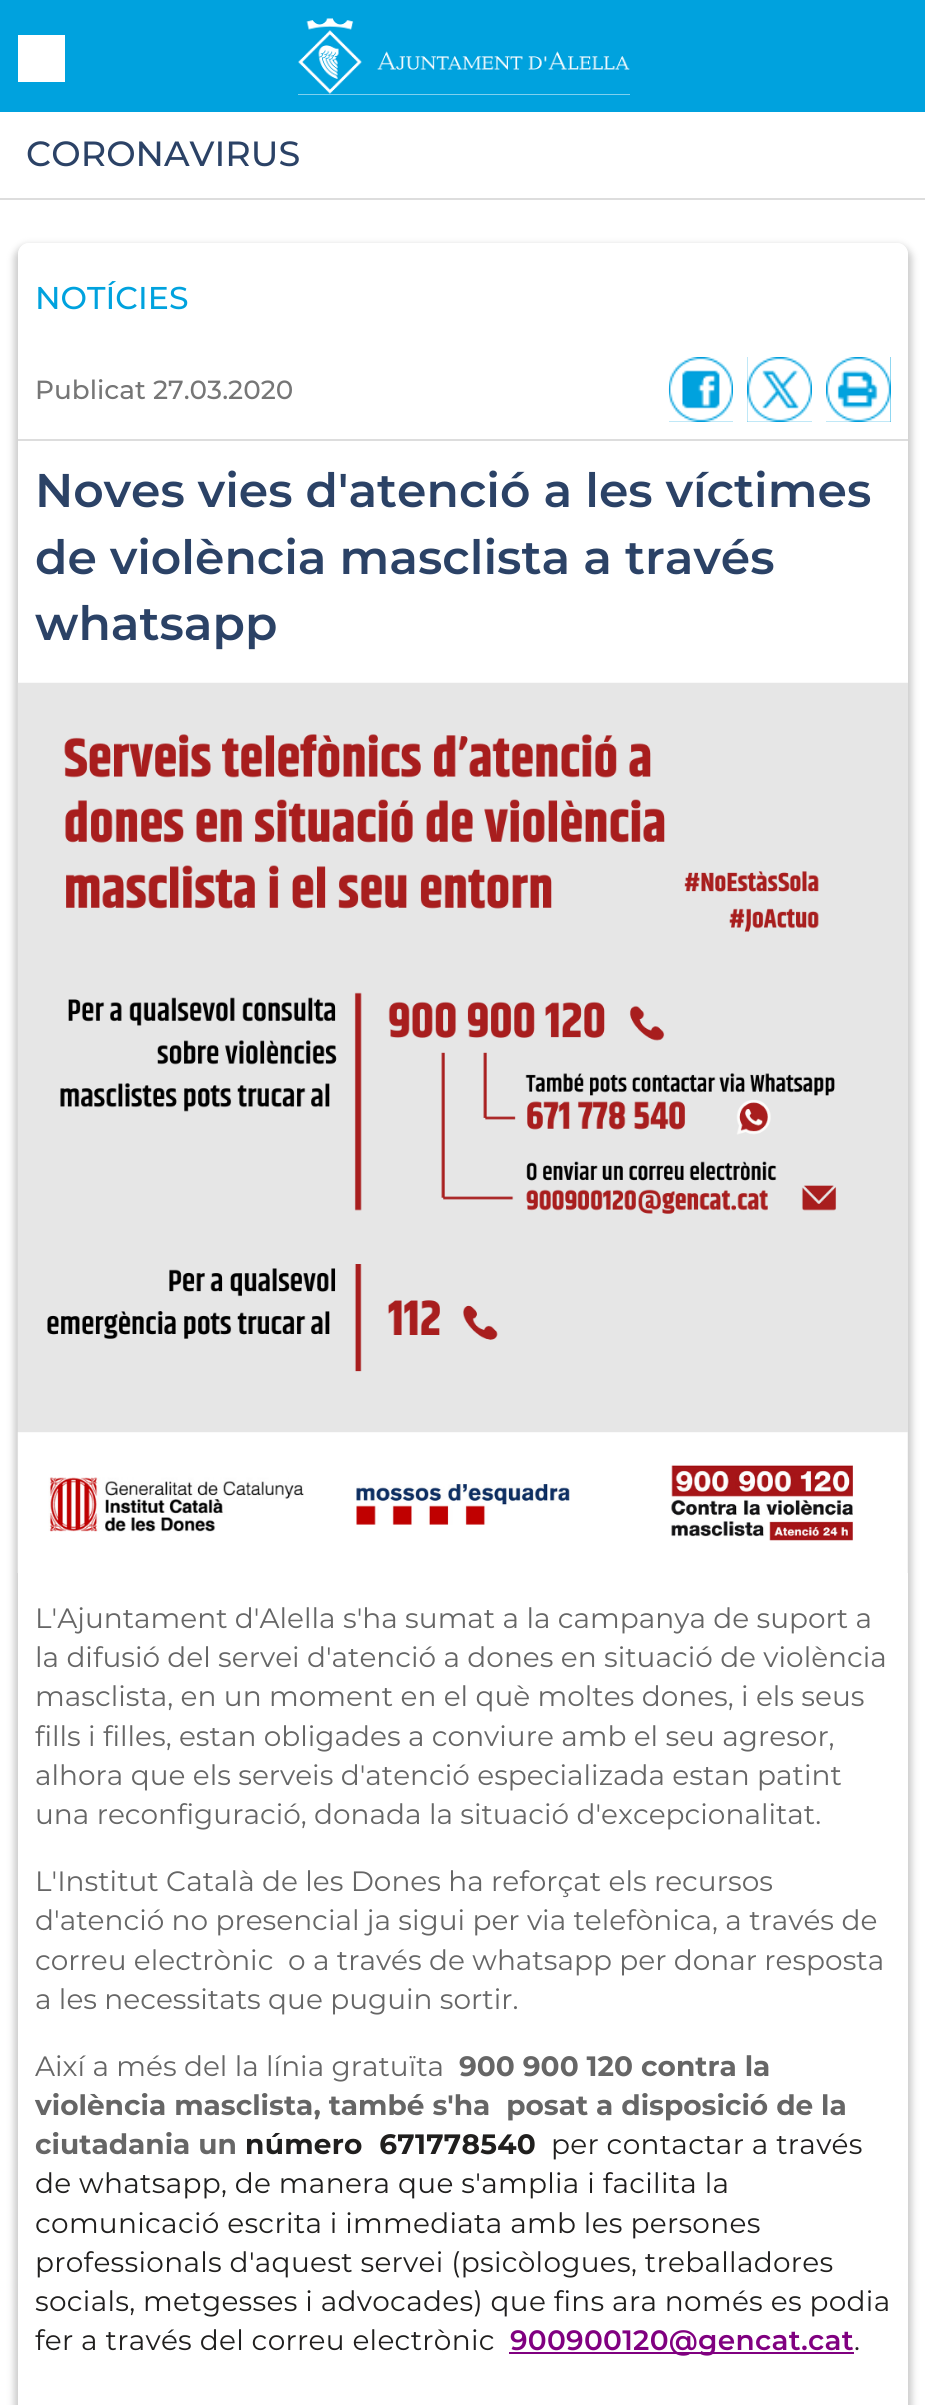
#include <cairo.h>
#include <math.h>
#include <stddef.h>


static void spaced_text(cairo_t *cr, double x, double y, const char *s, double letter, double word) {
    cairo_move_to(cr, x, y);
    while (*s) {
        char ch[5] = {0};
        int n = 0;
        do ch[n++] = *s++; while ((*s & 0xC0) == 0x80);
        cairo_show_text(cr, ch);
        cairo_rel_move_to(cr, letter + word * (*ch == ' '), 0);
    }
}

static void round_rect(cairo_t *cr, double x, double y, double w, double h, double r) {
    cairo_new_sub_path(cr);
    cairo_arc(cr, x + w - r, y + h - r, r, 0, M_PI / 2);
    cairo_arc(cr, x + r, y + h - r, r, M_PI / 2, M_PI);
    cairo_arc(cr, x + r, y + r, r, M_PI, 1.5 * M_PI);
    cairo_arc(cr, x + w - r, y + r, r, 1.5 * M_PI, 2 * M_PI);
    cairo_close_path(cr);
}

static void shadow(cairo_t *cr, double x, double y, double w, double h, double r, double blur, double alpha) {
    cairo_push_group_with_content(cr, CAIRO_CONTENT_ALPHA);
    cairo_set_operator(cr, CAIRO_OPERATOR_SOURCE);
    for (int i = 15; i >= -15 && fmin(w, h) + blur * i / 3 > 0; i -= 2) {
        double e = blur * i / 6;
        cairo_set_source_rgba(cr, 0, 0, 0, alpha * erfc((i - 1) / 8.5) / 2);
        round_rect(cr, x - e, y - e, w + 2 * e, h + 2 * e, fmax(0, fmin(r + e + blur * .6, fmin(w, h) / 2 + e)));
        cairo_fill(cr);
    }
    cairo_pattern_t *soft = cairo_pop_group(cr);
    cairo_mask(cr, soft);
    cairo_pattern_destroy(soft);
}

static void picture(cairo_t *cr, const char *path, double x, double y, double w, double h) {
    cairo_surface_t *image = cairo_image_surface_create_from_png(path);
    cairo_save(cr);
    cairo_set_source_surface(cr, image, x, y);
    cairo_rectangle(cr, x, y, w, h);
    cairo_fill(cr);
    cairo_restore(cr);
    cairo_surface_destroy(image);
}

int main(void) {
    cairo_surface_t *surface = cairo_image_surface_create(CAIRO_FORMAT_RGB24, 925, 2405);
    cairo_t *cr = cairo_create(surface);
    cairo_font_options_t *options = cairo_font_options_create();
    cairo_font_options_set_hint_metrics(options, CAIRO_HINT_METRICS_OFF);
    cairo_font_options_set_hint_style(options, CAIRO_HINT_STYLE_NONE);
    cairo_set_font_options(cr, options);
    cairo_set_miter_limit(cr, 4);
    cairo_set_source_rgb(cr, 1, 1, 1);
    cairo_paint(cr);
    cairo_set_source_rgb(cr, 0, 0.635, 0.871);
    cairo_rectangle(cr, 0, 0, 925, 112);
    cairo_fill(cr);
    cairo_set_source_rgb(cr, 1, 1, 1);
    cairo_rectangle(cr, 18, 35, 47, 47);
    cairo_fill(cr);
    cairo_rectangle(cr, 298, 18, 332, 77);
    cairo_fill(cr);
    picture(cr, "img1.png", 298, 18, 332, 77);
    cairo_set_source_rgb(cr, 0.867, 0.867, 0.867);
    cairo_rectangle(cr, 0, 198, 925, 2);
    cairo_fill(cr);
    cairo_select_font_face(cr, "Montserrat Medium", CAIRO_FONT_SLANT_NORMAL, CAIRO_FONT_WEIGHT_NORMAL);
    cairo_set_font_size(cr, 35);
    cairo_set_source_rgb(cr, 0.169, 0.259, 0.4);
    cairo_move_to(cr, 26, 166);
    cairo_show_text(cr, "CORONAVIRUS");
    cairo_save(cr);
    cairo_set_fill_rule(cr, CAIRO_FILL_RULE_EVEN_ODD);
    cairo_new_path(cr);
    cairo_move_to(cr, 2, 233);
    cairo_line_to(cr, 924, 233);
    cairo_line_to(cr, 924, 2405);
    cairo_line_to(cr, 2, 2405);
    cairo_close_path(cr);
    cairo_move_to(cr, 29, 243);
    cairo_line_to(cr, 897, 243);
    cairo_curve_to(cr, 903, 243, 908, 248, 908, 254);
    cairo_line_to(cr, 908, 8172);
    cairo_curve_to(cr, 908, 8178, 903, 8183, 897, 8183);
    cairo_line_to(cr, 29, 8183);
    cairo_curve_to(cr, 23, 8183, 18, 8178, 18, 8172);
    cairo_line_to(cr, 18, 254);
    cairo_curve_to(cr, 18, 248, 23, 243, 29, 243);
    cairo_close_path(cr);
    cairo_clip(cr);
    cairo_set_source_rgb(cr, 0.8, 0.8, 0.8);
    shadow(cr, 14, 245, 898, 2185, 14, 3.5, 1);
    cairo_restore(cr);
    cairo_set_source_rgb(cr, 0.867, 0.867, 0.867);
    cairo_rectangle(cr, 18, 439, 890, 2);
    cairo_fill(cr);
    cairo_set_font_size(cr, 31.5);
    cairo_set_source_rgb(cr, 0, 0.635, 0.871);
    cairo_move_to(cr, 35, 309);
    cairo_show_text(cr, "NOTÍCIES");
    cairo_set_font_size(cr, 26.25);
    cairo_set_source_rgb(cr, 0.463, 0.463, 0.463);
    cairo_move_to(cr, 35, 399);
    cairo_show_text(cr, "Publicat 27.03.2020");
    cairo_set_source_rgb(cr, 0, 0.635, 0.871);
    cairo_rectangle(cr, 669, 357, 64, 65);
    cairo_fill(cr);
    picture(cr, "img2.png", 668, 357, 65, 65);
    cairo_rectangle(cr, 747, 357, 65, 65);
    cairo_fill(cr);
    picture(cr, "img3.png", 747, 357, 65, 65);
    cairo_rectangle(cr, 826, 357, 65, 65);
    cairo_fill(cr);
    picture(cr, "img4.png", 826, 357, 65, 65);
    cairo_select_font_face(cr, "Montserrat SemiBold", CAIRO_FONT_SLANT_NORMAL, CAIRO_FONT_WEIGHT_NORMAL);
    cairo_set_font_size(cr, 47.25);
    cairo_set_source_rgb(cr, 0.169, 0.259, 0.4);
    cairo_move_to(cr, 35, 507);
    cairo_show_text(cr, "Noves vies d'atenció a les víctimes");
    cairo_move_to(cr, 35, 574);
    cairo_show_text(cr, "de violència masclista a través");
    cairo_move_to(cr, 35, 640);
    cairo_show_text(cr, "whatsapp");
    picture(cr, "img5.png", 17, 682, 891, 891);
    cairo_select_font_face(cr, "Montserrat", CAIRO_FONT_SLANT_NORMAL, CAIRO_FONT_WEIGHT_NORMAL);
    cairo_set_font_size(cr, 28);
    cairo_set_source_rgb(cr, 0.4, 0.4, 0.4);
    cairo_move_to(cr, 35, 1628);
    cairo_show_text(cr, "L'Ajuntament d'Alella s'ha sumat a la campanya de suport a");
    cairo_move_to(cr, 35, 1667);
    cairo_show_text(cr, "la difusió del servei d'atenció a dones en situació de violència");
    cairo_move_to(cr, 35, 1706);
    cairo_show_text(cr, "masclista, en un moment en el què moltes dones, i els seus");
    cairo_move_to(cr, 35, 1746);
    cairo_show_text(cr, "fills i filles, estan obligades a conviure amb el seu agresor,");
    cairo_move_to(cr, 35, 1785);
    cairo_show_text(cr, "alhora que els serveis d'atenció especializada estan patint");
    cairo_move_to(cr, 35, 1824);
    cairo_show_text(cr, "una reconfiguració, donada la situació d'excepcionalitat.");
    cairo_move_to(cr, 35, 1891);
    cairo_show_text(cr, "L'Institut Català de les Dones ha reforçat els recursos");
    cairo_move_to(cr, 35, 1930);
    cairo_show_text(cr, "d'atenció no presencial ja sigui per via telefònica, a través de");
    cairo_move_to(cr, 35, 1970);
    cairo_show_text(cr, "correu electrònic  o a través de whatsapp per donar resposta");
    cairo_move_to(cr, 35, 2009);
    cairo_show_text(cr, "a les necessitats que puguin sortir.");
    cairo_move_to(cr, 35, 2076);
    cairo_show_text(cr, "Així a més del la línia gratuïta");
    cairo_select_font_face(cr, "Montserrat", CAIRO_FONT_SLANT_NORMAL, CAIRO_FONT_WEIGHT_BOLD);
    cairo_move_to(cr, 459, 2076);
    cairo_show_text(cr, "900 900 120 contra la");
    cairo_move_to(cr, 35, 2115);
    cairo_show_text(cr, "violència masclista, també s'ha  posat a disposició de la");
    cairo_move_to(cr, 35, 2154);
    cairo_show_text(cr, "ciutadania un");
    cairo_set_source_rgb(cr, 0.125, 0.122, 0.118);
    spaced_text(cr, 245, 2154, "número  671778540", 0.28, 0);
    cairo_select_font_face(cr, "Montserrat", CAIRO_FONT_SLANT_NORMAL, CAIRO_FONT_WEIGHT_NORMAL);
    spaced_text(cr, 551, 2154, "per contactar a través", 0.28, 0);
    spaced_text(cr, 35, 2193, "de whatsapp, de manera que s'amplia i facilita la", 0.28, 0);
    spaced_text(cr, 35, 2233, "comunicació escrita i immediata amb les persones", 0.28, 0);
    spaced_text(cr, 35, 2272, "professionals d'aquest servei (psicòlogues, treballadores", 0.28, 0);
    spaced_text(cr, 35, 2311, "socials, metgesses i advocades) que fins ara només es podia", 0.28, 0);
    spaced_text(cr, 35, 2350, "fer a través del correu electrònic", 0.28, 0);
    cairo_set_source_rgb(cr, 0.502, 0, 0.502);
    cairo_rectangle(cr, 509, 2352, 345, 2);
    cairo_fill(cr);
    cairo_select_font_face(cr, "Montserrat SemiBold", CAIRO_FONT_SLANT_NORMAL, CAIRO_FONT_WEIGHT_NORMAL);
    spaced_text(cr, 510, 2350, "900900120@gencat.cat", 0.28, 0);
    cairo_select_font_face(cr, "Montserrat", CAIRO_FONT_SLANT_NORMAL, CAIRO_FONT_WEIGHT_NORMAL);
    cairo_set_source_rgb(cr, 0.125, 0.122, 0.118);
    spaced_text(cr, 854, 2350, ".", 0.28, 0);
    cairo_surface_write_to_png(surface, "page.png");
    cairo_font_options_destroy(options);
    cairo_destroy(cr);
    cairo_surface_destroy(surface);
    return 0;
}
